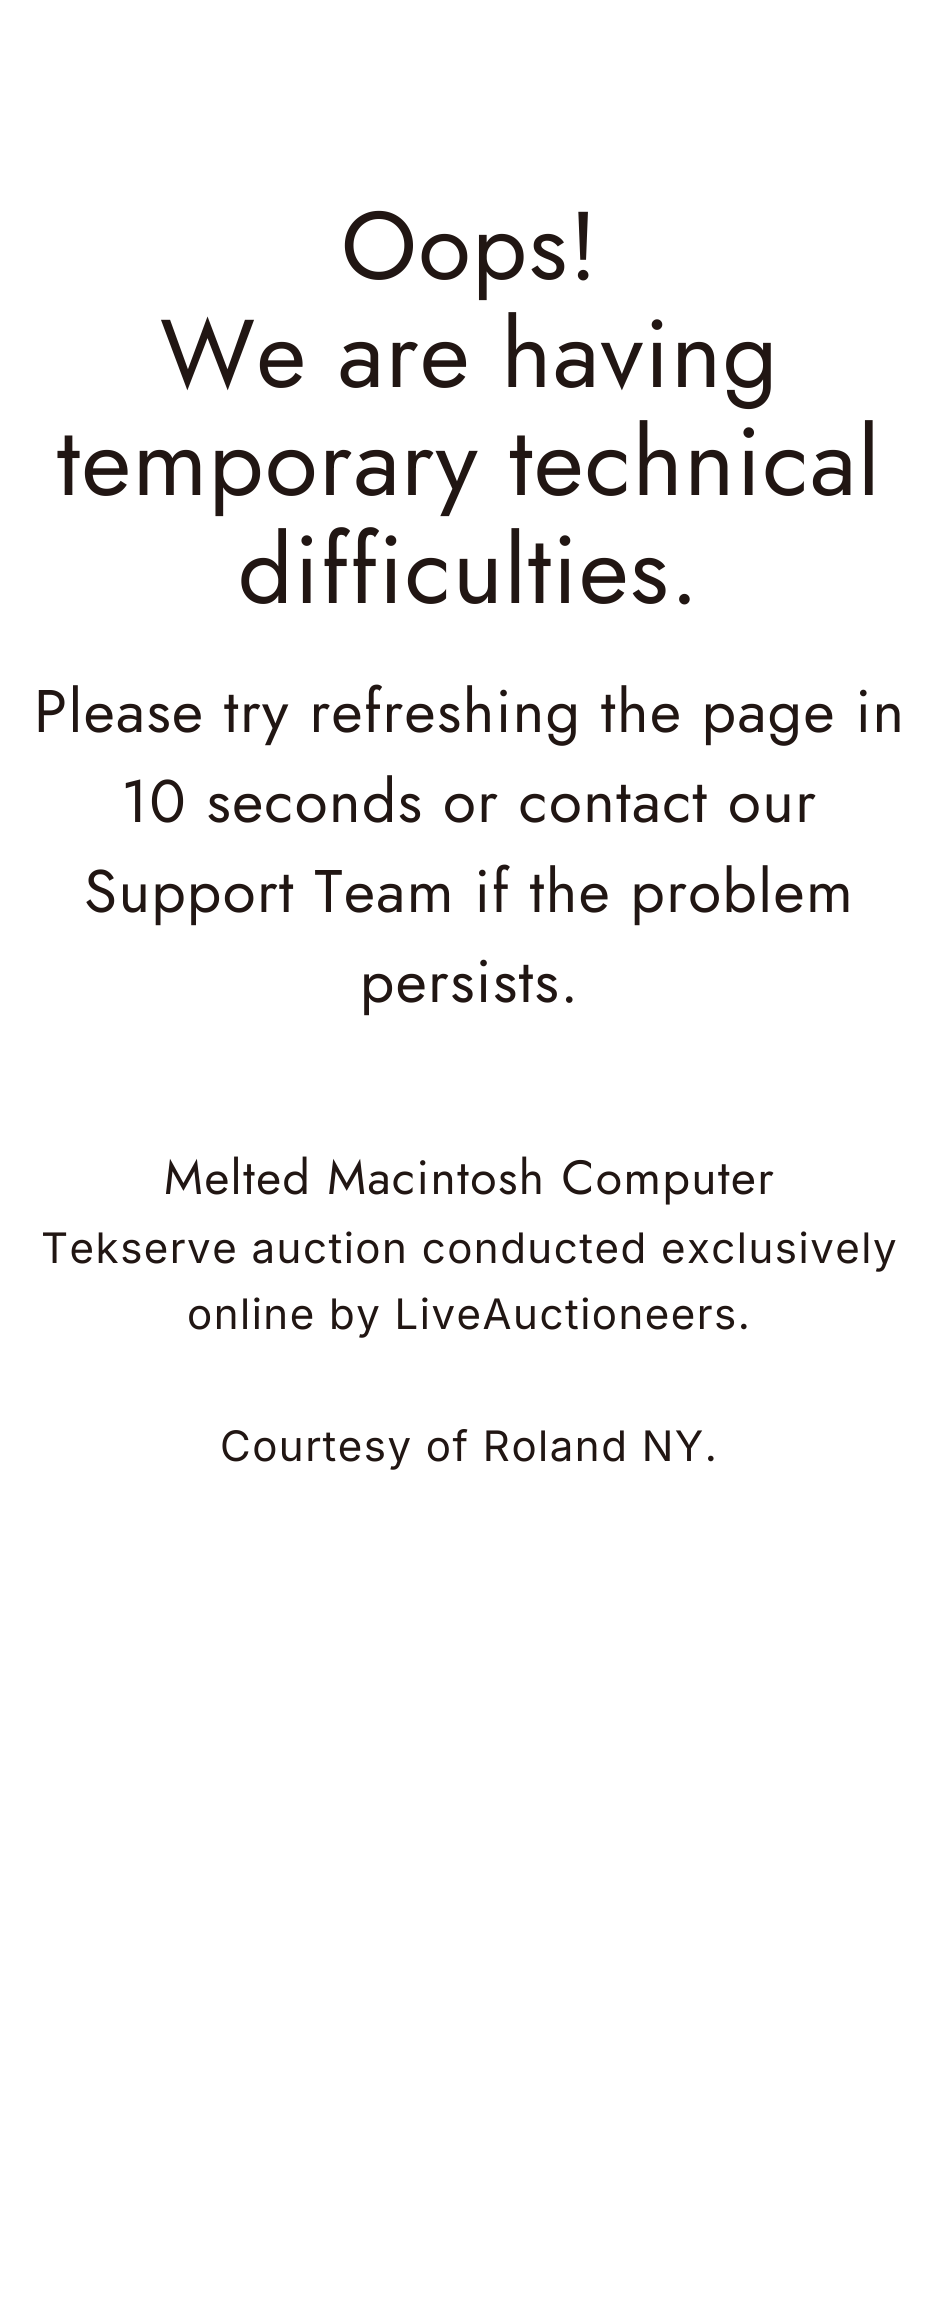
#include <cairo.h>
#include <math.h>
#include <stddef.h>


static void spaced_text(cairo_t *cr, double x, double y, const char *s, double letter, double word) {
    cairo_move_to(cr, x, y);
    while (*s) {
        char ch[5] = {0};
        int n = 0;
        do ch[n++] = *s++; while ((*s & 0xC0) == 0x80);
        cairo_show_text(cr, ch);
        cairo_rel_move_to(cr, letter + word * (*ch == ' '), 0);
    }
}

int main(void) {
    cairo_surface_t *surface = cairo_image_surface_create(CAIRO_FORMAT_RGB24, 939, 2309);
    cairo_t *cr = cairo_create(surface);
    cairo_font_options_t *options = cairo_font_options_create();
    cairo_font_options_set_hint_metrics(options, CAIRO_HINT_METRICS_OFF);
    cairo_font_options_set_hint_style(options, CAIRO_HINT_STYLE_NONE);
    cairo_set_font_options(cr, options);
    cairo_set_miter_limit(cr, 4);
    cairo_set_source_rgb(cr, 1, 1, 1);
    cairo_paint(cr);
    cairo_select_font_face(cr, "Jost", CAIRO_FONT_SLANT_NORMAL, CAIRO_FONT_WEIGHT_NORMAL);
    cairo_set_font_size(cr, 96);
    cairo_set_source_rgb(cr, 0.129, 0.086, 0.078);
    spaced_text(cr, 341, 279, "Oops!", 1.5, 0);
    spaced_text(cr, 160, 387, "We are having", 1.5, 0);
    spaced_text(cr, 57, 495, "temporary technical", 1.5, 0);
    spaced_text(cr, 238, 603, "difficulties.", 1.5, 0);
    cairo_set_font_size(cr, 60);
    spaced_text(cr, 34, 732, "Please try refreshing the page in", 1.5, 0);
    spaced_text(cr, 121, 822, "10 seconds or contact our", 1.5, 0);
    spaced_text(cr, 84, 912, "Support Team if the problem", 1.5, 0);
    spaced_text(cr, 360, 1002, "persists.", 1.5, 0);
    cairo_set_font_size(cr, 48);
    spaced_text(cr, 164, 1194, "Melted Macintosh Computer", 1.5, 0);
    cairo_select_font_face(cr, "Inter", CAIRO_FONT_SLANT_NORMAL, CAIRO_FONT_WEIGHT_NORMAL);
    cairo_set_font_size(cr, 42);
    spaced_text(cr, 41, 1263, "Tekserve auction conducted exclusively", 1.5, 0);
    spaced_text(cr, 187, 1329, "online by LiveAuctioneers.", 1.5, 0);
    spaced_text(cr, 220, 1461, "Courtesy of Roland NY.", 1.5, 0);
    cairo_surface_write_to_png(surface, "page.png");
    cairo_font_options_destroy(options);
    cairo_destroy(cr);
    cairo_surface_destroy(surface);
    return 0;
}
